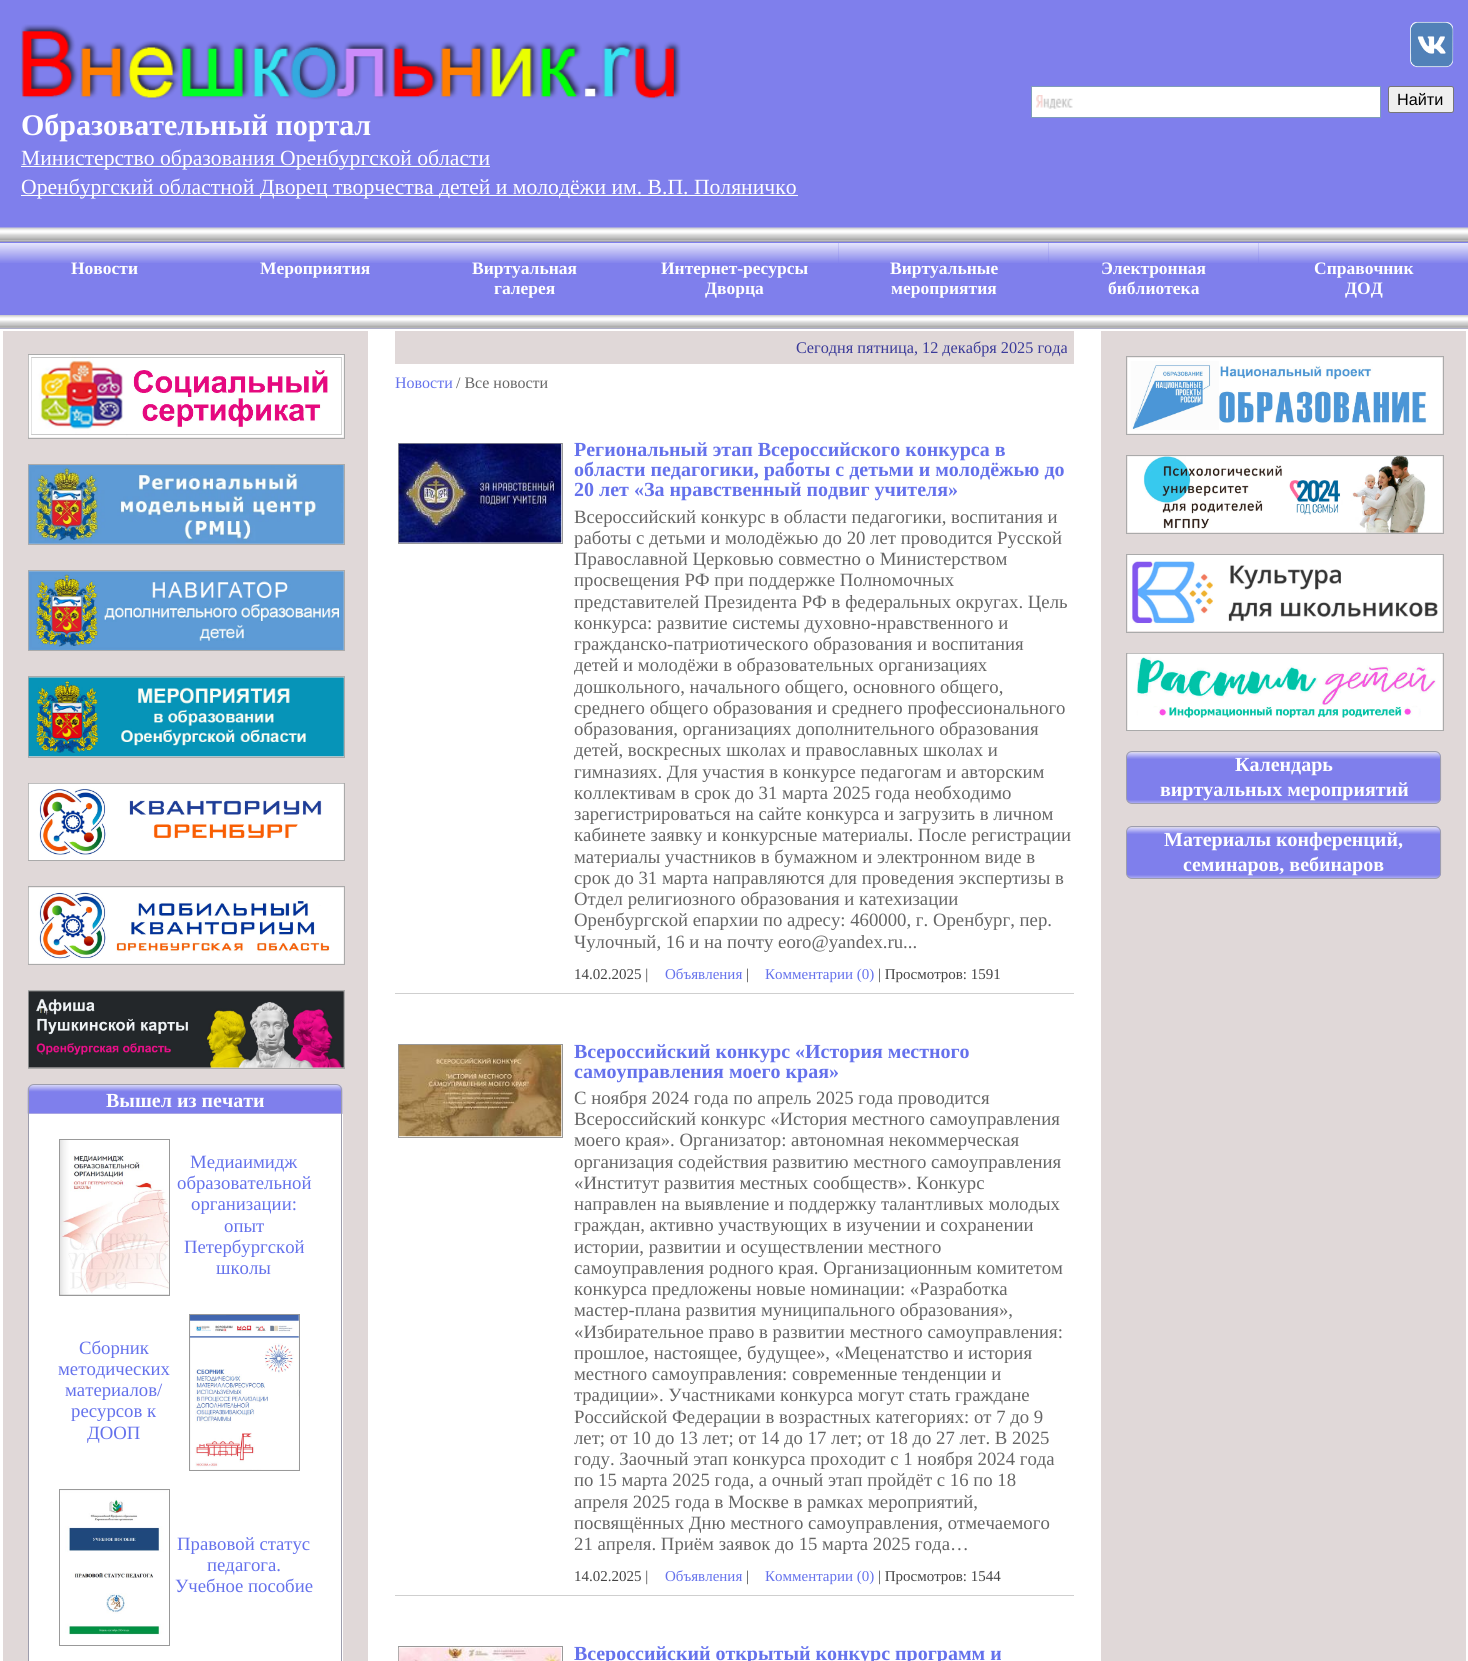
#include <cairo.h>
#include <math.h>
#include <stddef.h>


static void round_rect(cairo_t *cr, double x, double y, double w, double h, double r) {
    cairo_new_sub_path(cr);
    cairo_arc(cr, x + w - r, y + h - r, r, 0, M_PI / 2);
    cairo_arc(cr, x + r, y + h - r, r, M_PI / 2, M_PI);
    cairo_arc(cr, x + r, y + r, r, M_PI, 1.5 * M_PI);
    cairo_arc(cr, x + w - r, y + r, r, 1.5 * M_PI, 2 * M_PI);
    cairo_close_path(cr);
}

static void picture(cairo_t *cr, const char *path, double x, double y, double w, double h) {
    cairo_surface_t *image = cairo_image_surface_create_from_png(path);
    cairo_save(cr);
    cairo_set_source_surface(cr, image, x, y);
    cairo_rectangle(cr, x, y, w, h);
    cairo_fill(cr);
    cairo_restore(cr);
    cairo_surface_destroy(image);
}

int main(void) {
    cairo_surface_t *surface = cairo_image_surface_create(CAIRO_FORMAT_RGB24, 1468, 1661);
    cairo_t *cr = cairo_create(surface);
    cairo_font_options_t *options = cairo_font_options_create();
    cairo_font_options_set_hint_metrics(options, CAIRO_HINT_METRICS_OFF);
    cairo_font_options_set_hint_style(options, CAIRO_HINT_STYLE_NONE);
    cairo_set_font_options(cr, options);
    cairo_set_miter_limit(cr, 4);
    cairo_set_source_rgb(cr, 0.498, 0.498, 0.925);
    cairo_paint(cr);
    picture(cr, "img1.png", 1410, 21, 44, 47);
    cairo_set_source_rgb(cr, 1, 1, 1);
    cairo_rectangle(cr, 1032, 87, 348, 30);
    cairo_fill(cr);
    picture(cr, "img2.png", 1036, 95, 37, 14);
    cairo_rectangle(cr, 1031.5, 86.5, 349, 31);
    cairo_set_source_rgb(cr, 0.498, 0.616, 0.725);
    cairo_set_line_width(cr, 1);
    cairo_stroke(cr);
    cairo_set_source_rgb(cr, 0.937, 0.937, 0.937);
    round_rect(cr, 1388.5, 86.5, 65, 26, 2);
    cairo_fill_preserve(cr);
    cairo_set_source_rgb(cr, 0.463, 0.463, 0.463);
    cairo_stroke(cr);
    cairo_select_font_face(cr, "Liberation Sans", CAIRO_FONT_SLANT_NORMAL, CAIRO_FONT_WEIGHT_NORMAL);
    cairo_set_font_size(cr, 16.25);
    cairo_set_source_rgb(cr, 0, 0, 0);
    cairo_move_to(cr, 1397, 105);
    cairo_show_text(cr, "Найти");
    picture(cr, "img3.png", 21, 24, 660, 76);
    cairo_select_font_face(cr, "Liberation Serif", CAIRO_FONT_SLANT_NORMAL, CAIRO_FONT_WEIGHT_BOLD);
    cairo_set_font_size(cr, 30);
    cairo_set_source_rgb(cr, 1, 1, 1);
    cairo_move_to(cr, 21, 135);
    cairo_show_text(cr, "Образовательный портал");
    cairo_rectangle(cr, 21, 166, 469, 1);
    cairo_fill(cr);
    cairo_select_font_face(cr, "Liberation Serif", CAIRO_FONT_SLANT_NORMAL, CAIRO_FONT_WEIGHT_NORMAL);
    cairo_set_font_size(cr, 21.65);
    cairo_move_to(cr, 21, 165);
    cairo_show_text(cr, "Министерство образования Оренбургской области");
    cairo_rectangle(cr, 21, 195, 777, 1);
    cairo_fill(cr);
    cairo_move_to(cr, 21, 194);
    cairo_show_text(cr, "Оренбургский областной Дворец творчества детей и молодёжи им. В.П. Поляничко");
    picture(cr, "img4.png", 0, 227, 1468, 14);
    picture(cr, "img5.png", 0, 243, 210, 20);
    cairo_select_font_face(cr, "Liberation Serif", CAIRO_FONT_SLANT_NORMAL, CAIRO_FONT_WEIGHT_BOLD);
    cairo_set_font_size(cr, 17.5);
    cairo_move_to(cr, 71, 274);
    cairo_show_text(cr, "Новости");
    picture(cr, "img5.png", 210, 243, 210, 20);
    cairo_move_to(cr, 260, 274);
    cairo_show_text(cr, "Мероприятия");
    picture(cr, "img5.png", 420, 243, 210, 20);
    cairo_move_to(cr, 472, 274);
    cairo_show_text(cr, "Виртуальная");
    cairo_move_to(cr, 494, 294);
    cairo_show_text(cr, "галерея");
    picture(cr, "img6.png", 630, 243, 209, 20);
    cairo_move_to(cr, 661, 274);
    cairo_show_text(cr, "Интернет-ресурсы");
    cairo_move_to(cr, 705, 294);
    cairo_show_text(cr, "Дворца");
    picture(cr, "img7.png", 839, 243, 210, 20);
    cairo_move_to(cr, 890, 274);
    cairo_show_text(cr, "Виртуальные");
    cairo_move_to(cr, 891, 294);
    cairo_show_text(cr, "мероприятия");
    picture(cr, "img7.png", 1049, 243, 210, 20);
    cairo_move_to(cr, 1101, 274);
    cairo_show_text(cr, "Электронная");
    cairo_move_to(cr, 1108, 294);
    cairo_show_text(cr, "библиотека");
    cairo_set_source_rgb(cr, 0.616, 0.616, 0.678);
    cairo_rectangle(cr, 0, 241, 1468, 1);
    cairo_fill(cr);
    picture(cr, "img8.png", 1259, 243, 209, 20);
    cairo_set_source_rgb(cr, 1, 1, 1);
    cairo_move_to(cr, 1314, 274);
    cairo_show_text(cr, "Справочник");
    cairo_move_to(cr, 1345, 294);
    cairo_show_text(cr, "ДОД");
    picture(cr, "img9.png", 0, 315, 1468, 14);
    cairo_rectangle(cr, 0, 329, 1468, 1332);
    cairo_fill(cr);
    cairo_set_source_rgb(cr, 0.878, 0.847, 0.847);
    cairo_rectangle(cr, 395, 331, 679, 33);
    cairo_fill(cr);
    cairo_select_font_face(cr, "Liberation Serif", CAIRO_FONT_SLANT_NORMAL, CAIRO_FONT_WEIGHT_NORMAL);
    cairo_set_font_size(cr, 16.25);
    cairo_set_source_rgb(cr, 0.227, 0.227, 0.6);
    cairo_move_to(cr, 796, 353);
    cairo_show_text(cr, "Сегодня пятница, 12 декабря 2025 года");
    cairo_set_font_size(cr, 16);
    cairo_set_source_rgb(cr, 0.396, 0.447, 0.925);
    cairo_move_to(cr, 395, 388);
    cairo_show_text(cr, "Новости");
    cairo_set_source_rgb(cr, 0.4, 0.4, 0.4);
    cairo_move_to(cr, 456, 388);
    cairo_show_text(cr, "/ Все новости");
    cairo_set_source_rgb(cr, 0.812, 0.812, 0.812);
    cairo_rectangle(cr, 395, 993, 679, 1);
    cairo_fill(cr);
    cairo_rectangle(cr, 398.5, 443.5, 164, 100);
    cairo_set_source_rgb(cr, 0.6, 0.6, 0.6);
    cairo_stroke(cr);
    picture(cr, "img10.png", 398, 443, 164, 100);
    cairo_select_font_face(cr, "Liberation Serif", CAIRO_FONT_SLANT_NORMAL, CAIRO_FONT_WEIGHT_BOLD);
    cairo_set_font_size(cr, 20);
    cairo_set_source_rgb(cr, 0.396, 0.447, 0.925);
    cairo_move_to(cr, 574, 456);
    cairo_show_text(cr, "Региональный этап Всероссийского конкурса в");
    cairo_move_to(cr, 574, 476);
    cairo_show_text(cr, "области педагогики, работы с детьми и молодёжью до");
    cairo_move_to(cr, 574, 496);
    cairo_show_text(cr, "20 лет «За нравственный подвиг учителя»");
    cairo_select_font_face(cr, "Liberation Serif", CAIRO_FONT_SLANT_NORMAL, CAIRO_FONT_WEIGHT_NORMAL);
    cairo_set_font_size(cr, 18.75);
    cairo_set_source_rgb(cr, 0.4, 0.4, 0.4);
    cairo_move_to(cr, 574, 523);
    cairo_show_text(cr, "Всероссийский конкурс в области педагогики, воспитания и");
    cairo_move_to(cr, 574, 544);
    cairo_show_text(cr, "работы с детьми и молодёжью до 20 лет проводится Русской");
    cairo_move_to(cr, 574, 565);
    cairo_show_text(cr, "Православной Церковью совместно о Министерством");
    cairo_move_to(cr, 574, 586);
    cairo_show_text(cr, "просвещения РФ при поддержке Полномочных");
    cairo_move_to(cr, 574, 608);
    cairo_show_text(cr, "представителей Президента РФ в федеральных округах. Цель");
    cairo_move_to(cr, 574, 629);
    cairo_show_text(cr, "конкурса: развитие системы духовно-нравственного и");
    cairo_move_to(cr, 574, 650);
    cairo_show_text(cr, "гражданско-патриотического образования и воспитания");
    cairo_move_to(cr, 574, 671);
    cairo_show_text(cr, "детей и молодёжи в образовательных организациях");
    cairo_move_to(cr, 574, 693);
    cairo_show_text(cr, "дошкольного, начального общего, основного общего,");
    cairo_move_to(cr, 574, 714);
    cairo_show_text(cr, "среднего общего образования и среднего профессионального");
    cairo_move_to(cr, 574, 735);
    cairo_show_text(cr, "образования, организациях дополнительного образования");
    cairo_move_to(cr, 574, 756);
    cairo_show_text(cr, "детей, воскресных школах и православных школах и");
    cairo_move_to(cr, 574, 778);
    cairo_show_text(cr, "гимназиях. Для участия в конкурсе педагогам и авторским");
    cairo_move_to(cr, 574, 799);
    cairo_show_text(cr, "коллективам в срок до 31 марта 2025 года необходимо");
    cairo_move_to(cr, 574, 820);
    cairo_show_text(cr, "зарегистрироваться на сайте конкурса и загрузить в личном");
    cairo_move_to(cr, 574, 841);
    cairo_show_text(cr, "кабинете заявку и конкурсные материалы. После регистрации");
    cairo_move_to(cr, 574, 863);
    cairo_show_text(cr, "материалы участников в бумажном и электронном виде в");
    cairo_move_to(cr, 574, 884);
    cairo_show_text(cr, "срок до 31 марта направляются для проведения экспертизы в");
    cairo_move_to(cr, 574, 905);
    cairo_show_text(cr, "Отдел религиозного образования и катехизации");
    cairo_move_to(cr, 574, 926);
    cairo_show_text(cr, "Оренбургской епархии по адресу: 460000, г. Оренбург, пер.");
    cairo_move_to(cr, 574, 948);
    cairo_show_text(cr, "Чулочный, 16 и на почту eoro@yandex.ru...");
    cairo_set_font_size(cr, 15);
    cairo_set_source_rgb(cr, 0.267, 0.267, 0.267);
    cairo_move_to(cr, 574, 979);
    cairo_show_text(cr, "14.02.2025 |");
    cairo_set_source_rgb(cr, 0.396, 0.447, 0.925);
    cairo_move_to(cr, 665, 979);
    cairo_show_text(cr, "Объявления");
    cairo_set_source_rgb(cr, 0.267, 0.267, 0.267);
    cairo_move_to(cr, 746, 979);
    cairo_show_text(cr, "|");
    cairo_set_source_rgb(cr, 0.396, 0.447, 0.925);
    cairo_move_to(cr, 765, 979);
    cairo_show_text(cr, "Комментарии (0)");
    cairo_set_source_rgb(cr, 0.267, 0.267, 0.267);
    cairo_move_to(cr, 878, 979);
    cairo_show_text(cr, "| Просмотров: 1591");
    cairo_set_source_rgb(cr, 0.812, 0.812, 0.812);
    cairo_rectangle(cr, 395, 1595, 679, 1);
    cairo_fill(cr);
    cairo_rectangle(cr, 398.5, 1044.5, 164, 93);
    cairo_set_source_rgb(cr, 0.6, 0.6, 0.6);
    cairo_stroke(cr);
    picture(cr, "img11.png", 398, 1045, 164, 92);
    cairo_select_font_face(cr, "Liberation Serif", CAIRO_FONT_SLANT_NORMAL, CAIRO_FONT_WEIGHT_BOLD);
    cairo_set_font_size(cr, 20);
    cairo_set_source_rgb(cr, 0.396, 0.447, 0.925);
    cairo_move_to(cr, 574, 1058);
    cairo_show_text(cr, "Всероссийский конкурс «История местного");
    cairo_move_to(cr, 574, 1078);
    cairo_show_text(cr, "самоуправления моего края»");
    cairo_select_font_face(cr, "Liberation Serif", CAIRO_FONT_SLANT_NORMAL, CAIRO_FONT_WEIGHT_NORMAL);
    cairo_set_font_size(cr, 18.75);
    cairo_set_source_rgb(cr, 0.4, 0.4, 0.4);
    cairo_move_to(cr, 574, 1104);
    cairo_show_text(cr, "С ноября 2024 года по апрель 2025 года проводится");
    cairo_move_to(cr, 574, 1125);
    cairo_show_text(cr, "Всероссийский конкурс «История местного самоуправления");
    cairo_move_to(cr, 574, 1146);
    cairo_show_text(cr, "моего края». Организатор: автономная некоммерческая");
    cairo_move_to(cr, 574, 1168);
    cairo_show_text(cr, "организация содействия развитию местного самоуправления");
    cairo_move_to(cr, 574, 1189);
    cairo_show_text(cr, "«Институт развития местных сообществ». Конкурс");
    cairo_move_to(cr, 574, 1210);
    cairo_show_text(cr, "направлен на выявление и поддержку талантливых молодых");
    cairo_move_to(cr, 574, 1231);
    cairo_show_text(cr, "граждан, активно участвующих в изучении и сохранении");
    cairo_move_to(cr, 574, 1253);
    cairo_show_text(cr, "истории, развитии и осуществлении местного");
    cairo_move_to(cr, 574, 1274);
    cairo_show_text(cr, "самоуправления родного края. Организационным комитетом");
    cairo_move_to(cr, 574, 1295);
    cairo_show_text(cr, "конкурса предложены новые номинации: «Разработка");
    cairo_move_to(cr, 574, 1316);
    cairo_show_text(cr, "мастер-плана развития муниципального образования»,");
    cairo_move_to(cr, 574, 1338);
    cairo_show_text(cr, "«Избирательное право в развитии местного самоуправления:");
    cairo_move_to(cr, 574, 1359);
    cairo_show_text(cr, "прошлое, настоящее, будущее», «Меценатство и история");
    cairo_move_to(cr, 574, 1380);
    cairo_show_text(cr, "местного самоуправления: современные тенденции и");
    cairo_move_to(cr, 574, 1401);
    cairo_show_text(cr, "традиции». Участниками конкурса могут стать граждане");
    cairo_move_to(cr, 574, 1423);
    cairo_show_text(cr, "Российской Федерации в возрастных категориях: от 7 до 9");
    cairo_move_to(cr, 574, 1444);
    cairo_show_text(cr, "лет; от 10 до 13 лет; от 14 до 17 лет; от 18 до 27 лет. В 2025");
    cairo_move_to(cr, 574, 1465);
    cairo_show_text(cr, "году. Заочный этап конкурса проходит с 1 ноября 2024 года");
    cairo_move_to(cr, 574, 1486);
    cairo_show_text(cr, "по 15 марта 2025 года, а очный этап пройдёт с 16 по 18");
    cairo_move_to(cr, 574, 1508);
    cairo_show_text(cr, "апреля 2025 года в Москве в рамках мероприятий,");
    cairo_move_to(cr, 574, 1529);
    cairo_show_text(cr, "посвящённых Дню местного самоуправления, отмечаемого");
    cairo_move_to(cr, 574, 1550);
    cairo_show_text(cr, "21 апреля. Приём заявок до 15 марта 2025 года…");
    cairo_set_font_size(cr, 15);
    cairo_set_source_rgb(cr, 0.267, 0.267, 0.267);
    cairo_move_to(cr, 574, 1581);
    cairo_show_text(cr, "14.02.2025 |");
    cairo_set_source_rgb(cr, 0.396, 0.447, 0.925);
    cairo_move_to(cr, 665, 1581);
    cairo_show_text(cr, "Объявления");
    cairo_set_source_rgb(cr, 0.267, 0.267, 0.267);
    cairo_move_to(cr, 746, 1581);
    cairo_show_text(cr, "|");
    cairo_set_source_rgb(cr, 0.396, 0.447, 0.925);
    cairo_move_to(cr, 765, 1581);
    cairo_show_text(cr, "Комментарии (0)");
    cairo_set_source_rgb(cr, 0.267, 0.267, 0.267);
    cairo_move_to(cr, 878, 1581);
    cairo_show_text(cr, "| Просмотров: 1544");
    cairo_rectangle(cr, 398.5, 1646.5, 164, 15);
    cairo_set_source_rgb(cr, 0.6, 0.6, 0.6);
    cairo_stroke(cr);
    picture(cr, "img12.png", 398, 1647, 164, 14);
    cairo_select_font_face(cr, "Liberation Serif", CAIRO_FONT_SLANT_NORMAL, CAIRO_FONT_WEIGHT_BOLD);
    cairo_set_font_size(cr, 20);
    cairo_set_source_rgb(cr, 0.396, 0.447, 0.925);
    cairo_move_to(cr, 574, 1660);
    cairo_show_text(cr, "Всероссийский открытый конкурс программ и");
    cairo_set_source_rgb(cr, 0.878, 0.847, 0.847);
    cairo_rectangle(cr, 1101, 331, 365, 1330);
    cairo_fill(cr);
    cairo_rectangle(cr, 1126.5, 356.5, 317, 78);
    cairo_set_source_rgb(cr, 0.667, 0.667, 0.667);
    cairo_stroke(cr);
    picture(cr, "img13.png", 1127, 357, 316, 77);
    cairo_rectangle(cr, 1126.5, 455.5, 317, 78);
    cairo_stroke(cr);
    picture(cr, "img14.png", 1127, 456, 316, 77);
    cairo_rectangle(cr, 1126.5, 554.5, 317, 78);
    cairo_stroke(cr);
    picture(cr, "img15.png", 1127, 555, 316, 77);
    cairo_rectangle(cr, 1126.5, 653.5, 317, 77);
    cairo_stroke(cr);
    picture(cr, "img16.png", 1127, 653, 316, 77);
    picture(cr, "img17.png", 1126, 752, 316, 52);
    round_rect(cr, 1126.5, 751.5, 314, 52, 5.5);
    cairo_set_source_rgb(cr, 0.616, 0.616, 0.678);
    cairo_stroke(cr);
    cairo_set_source_rgb(cr, 1, 1, 1);
    cairo_move_to(cr, 1235, 771);
    cairo_show_text(cr, "Календарь");
    cairo_move_to(cr, 1160, 796);
    cairo_show_text(cr, "виртуальных мероприятий");
    picture(cr, "img17.png", 1126, 827, 316, 52);
    round_rect(cr, 1126.5, 826.5, 314, 52, 5.5);
    cairo_set_source_rgb(cr, 0.616, 0.616, 0.678);
    cairo_stroke(cr);
    cairo_set_source_rgb(cr, 1, 1, 1);
    cairo_move_to(cr, 1164, 846);
    cairo_show_text(cr, "Материалы конференций,");
    cairo_move_to(cr, 1183, 871);
    cairo_show_text(cr, "семинаров, вебинаров");
    cairo_set_source_rgb(cr, 0.878, 0.847, 0.847);
    cairo_rectangle(cr, 3, 331, 365, 1330);
    cairo_fill(cr);
    cairo_rectangle(cr, 28.5, 354.5, 316, 84);
    cairo_set_source_rgb(cr, 0.667, 0.667, 0.667);
    cairo_stroke(cr);
    picture(cr, "img18.png", 28, 355, 316, 83);
    cairo_rectangle(cr, 28.5, 464.5, 316, 80);
    cairo_stroke(cr);
    picture(cr, "img19.png", 28, 465, 316, 79);
    cairo_rectangle(cr, 28.5, 570.5, 316, 80);
    cairo_stroke(cr);
    picture(cr, "img20.png", 28, 571, 316, 79);
    cairo_rectangle(cr, 28.5, 676.5, 316, 81);
    cairo_stroke(cr);
    picture(cr, "img21.png", 28, 677, 316, 80);
    cairo_rectangle(cr, 28.5, 783.5, 316, 77);
    cairo_stroke(cr);
    picture(cr, "img22.png", 28, 783, 316, 77);
    cairo_rectangle(cr, 28.5, 886.5, 316, 78);
    cairo_stroke(cr);
    picture(cr, "img23.png", 28, 887, 316, 77);
    cairo_rectangle(cr, 28.5, 990.5, 316, 78);
    cairo_stroke(cr);
    picture(cr, "img24.png", 28, 991, 316, 77);
    picture(cr, "img25.png", 27, 1085, 316, 29);
    cairo_set_source_rgb(cr, 0.616, 0.616, 0.678);
    cairo_set_fill_rule(cr, CAIRO_FILL_RULE_EVEN_ODD);
    cairo_new_path(cr);
    cairo_move_to(cr, 34, 1084);
    cairo_line_to(cr, 336, 1084);
    cairo_curve_to(cr, 340, 1084, 342, 1087, 342, 1090);
    cairo_line_to(cr, 342, 1114);
    cairo_line_to(cr, 28, 1114);
    cairo_line_to(cr, 28, 1090);
    cairo_curve_to(cr, 28, 1087, 30, 1084, 34, 1084);
    cairo_close_path(cr);
    cairo_move_to(cr, 34, 1085);
    cairo_line_to(cr, 336, 1085);
    cairo_curve_to(cr, 339, 1085, 341, 1087, 341, 1090);
    cairo_line_to(cr, 341, 1114);
    cairo_line_to(cr, 29, 1114);
    cairo_line_to(cr, 29, 1090);
    cairo_curve_to(cr, 29, 1087, 31, 1085, 34, 1085);
    cairo_close_path(cr);
    cairo_fill(cr);
    cairo_set_source_rgb(cr, 1, 1, 1);
    cairo_move_to(cr, 106, 1107);
    cairo_show_text(cr, "Вышел из печати");
    cairo_rectangle(cr, 29, 1114, 314, 547);
    cairo_fill(cr);
    cairo_set_source_rgb(cr, 0.616, 0.616, 0.678);
    cairo_new_path(cr);
    cairo_move_to(cr, 28, 1114);
    cairo_line_to(cr, 342, 1114);
    cairo_line_to(cr, 342, 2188);
    cairo_curve_to(cr, 342, 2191, 340, 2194, 336, 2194);
    cairo_line_to(cr, 34, 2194);
    cairo_curve_to(cr, 30, 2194, 28, 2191, 28, 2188);
    cairo_close_path(cr);
    cairo_move_to(cr, 29, 1114);
    cairo_line_to(cr, 341, 1114);
    cairo_line_to(cr, 341, 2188);
    cairo_curve_to(cr, 341, 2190, 339, 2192, 336, 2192);
    cairo_line_to(cr, 34, 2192);
    cairo_curve_to(cr, 31, 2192, 29, 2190, 29, 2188);
    cairo_close_path(cr);
    cairo_fill(cr);
    cairo_rectangle(cr, 59.5, 1139.5, 110, 156);
    cairo_set_source_rgb(cr, 0.6, 0.6, 0.6);
    cairo_stroke(cr);
    picture(cr, "img26.png", 60, 1140, 109, 155);
    cairo_select_font_face(cr, "Liberation Serif", CAIRO_FONT_SLANT_NORMAL, CAIRO_FONT_WEIGHT_NORMAL);
    cairo_set_font_size(cr, 18.75);
    cairo_set_source_rgb(cr, 0.396, 0.447, 0.925);
    cairo_move_to(cr, 190, 1168);
    cairo_show_text(cr, "Медиаимидж");
    cairo_move_to(cr, 177, 1189);
    cairo_show_text(cr, "образовательной");
    cairo_move_to(cr, 191, 1210);
    cairo_show_text(cr, "организации:");
    cairo_move_to(cr, 224, 1232);
    cairo_show_text(cr, "опыт");
    cairo_move_to(cr, 184, 1253);
    cairo_show_text(cr, "Петербургской");
    cairo_move_to(cr, 216, 1274);
    cairo_show_text(cr, "школы");
    cairo_move_to(cr, 79, 1354);
    cairo_show_text(cr, "Сборник");
    cairo_move_to(cr, 58, 1375);
    cairo_show_text(cr, "методических");
    cairo_move_to(cr, 65, 1396);
    cairo_show_text(cr, "материалов/");
    cairo_move_to(cr, 71, 1417);
    cairo_show_text(cr, "ресурсов к");
    cairo_move_to(cr, 87, 1439);
    cairo_show_text(cr, "ДООП");
    cairo_rectangle(cr, 189.5, 1314.5, 110, 156);
    cairo_set_source_rgb(cr, 0.6, 0.6, 0.6);
    cairo_stroke(cr);
    picture(cr, "img27.png", 190, 1315, 109, 155);
    cairo_rectangle(cr, 59.5, 1489.5, 110, 156);
    cairo_stroke(cr);
    picture(cr, "img28.png", 60, 1490, 108, 145);
    cairo_set_source_rgb(cr, 0.396, 0.447, 0.925);
    cairo_move_to(cr, 177, 1550);
    cairo_show_text(cr, "Правовой статус");
    cairo_move_to(cr, 207, 1571);
    cairo_show_text(cr, "педагога.");
    cairo_move_to(cr, 175, 1592);
    cairo_show_text(cr, "Учебное пособие");
    cairo_surface_write_to_png(surface, "page.png");
    cairo_font_options_destroy(options);
    cairo_destroy(cr);
    cairo_surface_destroy(surface);
    return 0;
}
